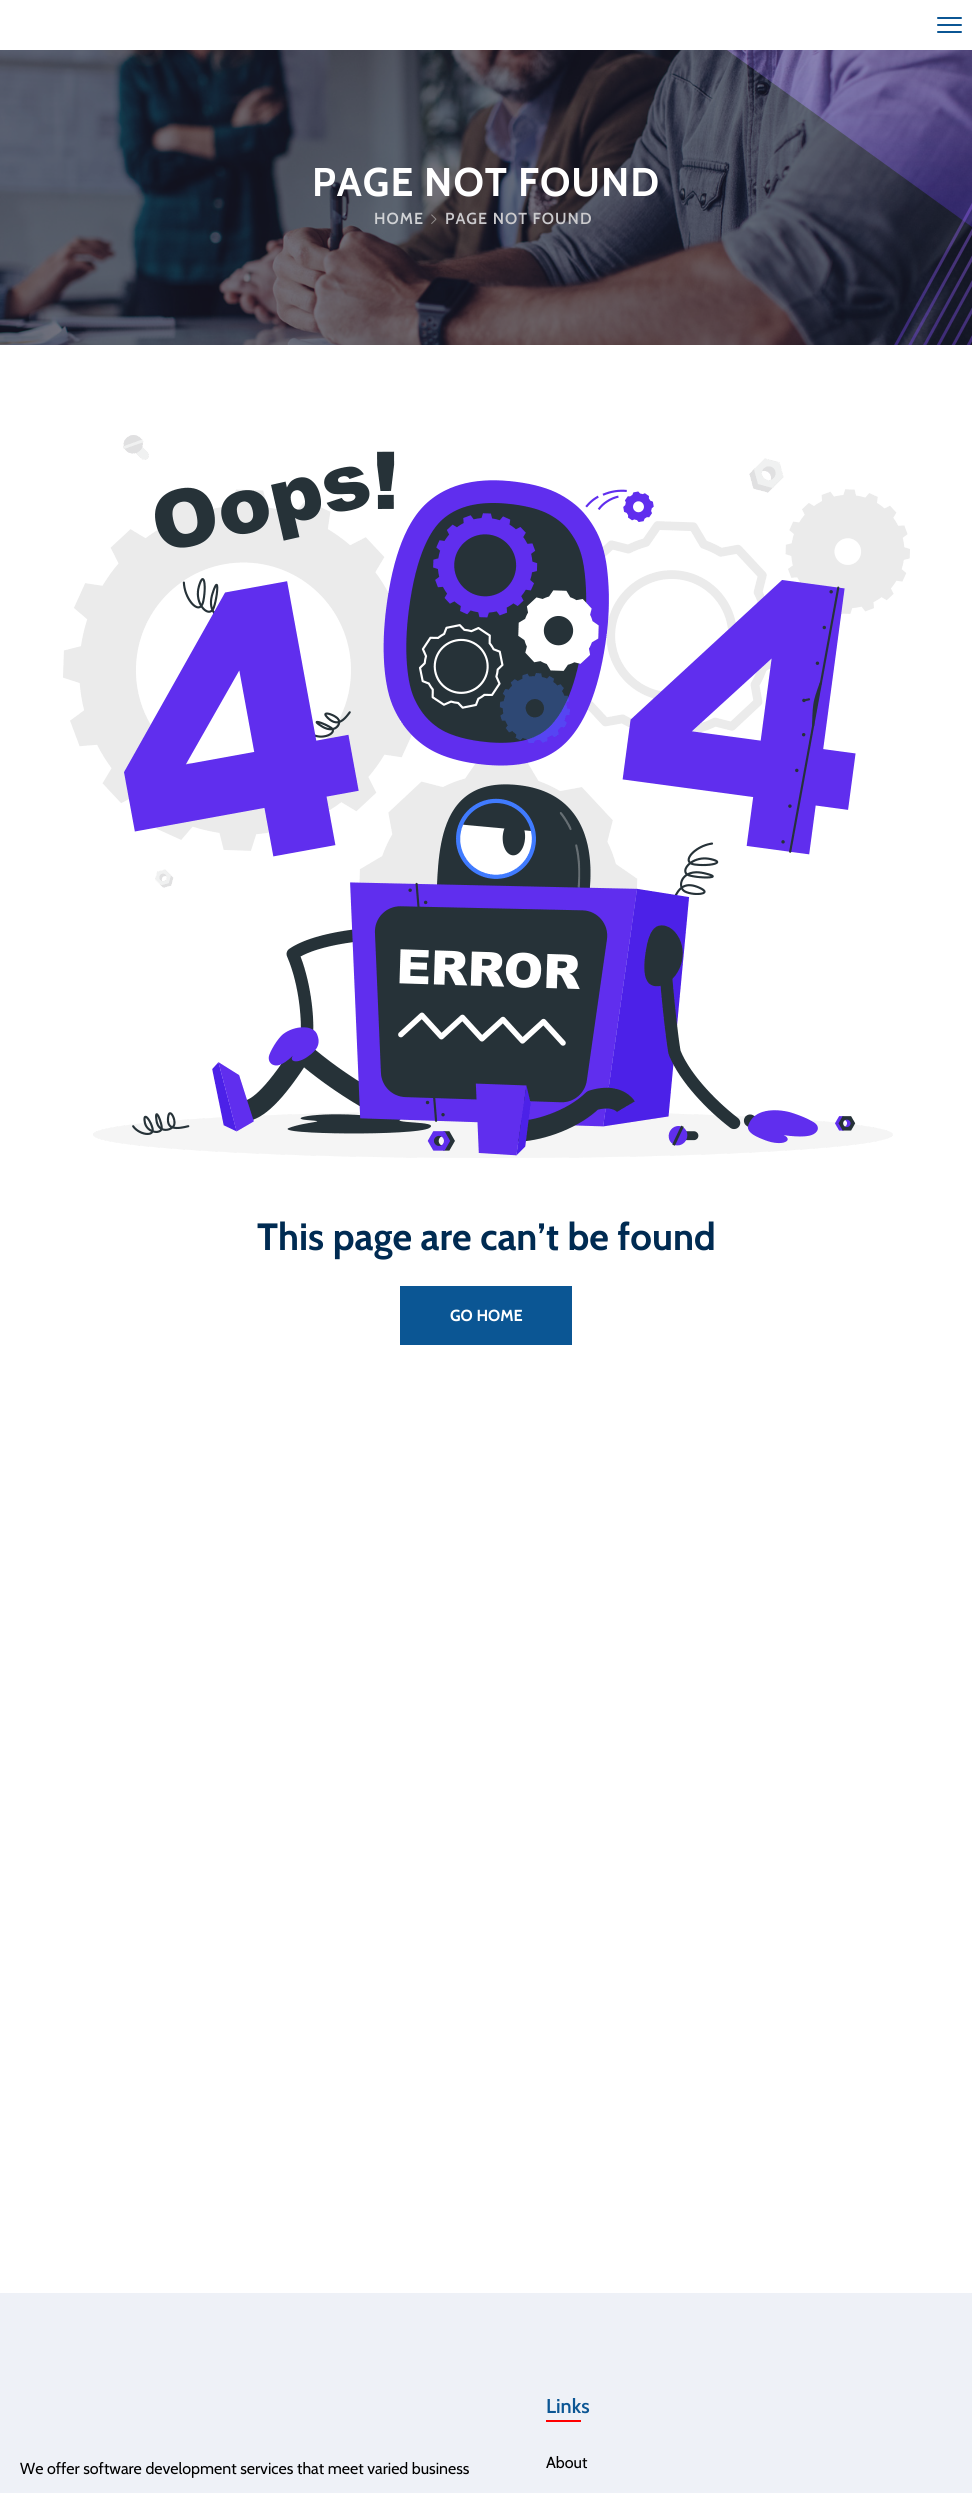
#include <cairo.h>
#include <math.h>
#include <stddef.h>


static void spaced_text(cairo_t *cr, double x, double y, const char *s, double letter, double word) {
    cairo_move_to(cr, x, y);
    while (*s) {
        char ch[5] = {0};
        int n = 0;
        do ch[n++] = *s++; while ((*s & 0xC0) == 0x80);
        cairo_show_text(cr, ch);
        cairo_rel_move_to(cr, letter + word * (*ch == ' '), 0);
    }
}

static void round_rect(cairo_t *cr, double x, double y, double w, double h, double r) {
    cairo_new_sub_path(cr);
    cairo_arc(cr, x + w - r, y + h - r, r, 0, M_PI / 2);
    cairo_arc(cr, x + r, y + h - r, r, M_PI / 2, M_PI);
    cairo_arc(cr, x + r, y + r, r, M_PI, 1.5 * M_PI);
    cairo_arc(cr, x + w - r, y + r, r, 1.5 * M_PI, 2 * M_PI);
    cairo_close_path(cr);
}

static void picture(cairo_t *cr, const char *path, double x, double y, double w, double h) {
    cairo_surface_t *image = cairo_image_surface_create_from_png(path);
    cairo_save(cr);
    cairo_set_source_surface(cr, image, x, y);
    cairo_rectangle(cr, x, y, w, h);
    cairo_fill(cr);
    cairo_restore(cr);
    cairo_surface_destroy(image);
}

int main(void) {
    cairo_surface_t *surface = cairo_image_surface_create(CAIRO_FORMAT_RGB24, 972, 2493);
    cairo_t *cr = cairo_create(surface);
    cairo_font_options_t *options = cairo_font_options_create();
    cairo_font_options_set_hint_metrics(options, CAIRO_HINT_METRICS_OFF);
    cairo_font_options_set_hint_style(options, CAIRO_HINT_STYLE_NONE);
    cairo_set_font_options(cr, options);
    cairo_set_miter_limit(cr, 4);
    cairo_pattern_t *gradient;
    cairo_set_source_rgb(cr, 1, 1, 1);
    cairo_paint(cr);
    cairo_set_source_rgb(cr, 0.043, 0.337, 0.58);
    round_rect(cr, 937, 17, 25, 2, 1);
    cairo_fill(cr);
    round_rect(cr, 937, 24, 25, 2, 1);
    cairo_fill(cr);
    round_rect(cr, 937, 31, 25, 2, 1);
    cairo_fill(cr);
    cairo_set_source_rgb(cr, 0.114, 0.09, 0.161);
    cairo_rectangle(cr, 0, 50, 972, 295);
    cairo_fill(cr);
    gradient = cairo_pattern_create_linear(850, 227, 850, 50);
    cairo_pattern_add_color_stop_rgba(gradient, 0, 0.243, 0.133, 0.549, 1);
    cairo_pattern_add_color_stop_rgba(gradient, 1, 0.388, 0.275, 0.573, 1);
    cairo_set_source(cr, gradient);
    cairo_pattern_destroy(gradient);
    cairo_new_path(cr);
    cairo_move_to(cr, 972, 50);
    cairo_line_to(cr, 972, 227);
    cairo_line_to(cr, 727, 50);
    cairo_close_path(cr);
    cairo_fill(cr);
    picture(cr, "img1.png", 0, 50, 972, 295);
    cairo_select_font_face(cr, "Cabin", CAIRO_FONT_SLANT_NORMAL, CAIRO_FONT_WEIGHT_BOLD);
    cairo_set_font_size(cr, 40);
    cairo_set_source_rgb(cr, 1, 1, 1);
    spaced_text(cr, 312, 196, "PAGE NOT FOUND", 1, 0);
    cairo_select_font_face(cr, "Cabin SemiBold", CAIRO_FONT_SLANT_NORMAL, CAIRO_FONT_WEIGHT_NORMAL);
    cairo_set_font_size(cr, 16);
    cairo_set_source_rgb(cr, 0.816, 0.824, 0.835);
    spaced_text(cr, 374, 224, "HOME", 1, 0);
    picture(cr, "img2.png", 431, 214, 6, 10);
    cairo_set_source_rgb(cr, 0.796, 0.792, 0.804);
    spaced_text(cr, 445, 224, "PAGE NOT FOUND", 1, 0);
    picture(cr, "img3.png", 894, 203, 78, 142);
    picture(cr, "img4.png", 63, 435, 847, 723);
    cairo_select_font_face(cr, "Cabin", CAIRO_FONT_SLANT_NORMAL, CAIRO_FONT_WEIGHT_BOLD);
    cairo_set_font_size(cr, 38);
    cairo_set_source_rgb(cr, 0, 0.169, 0.322);
    cairo_move_to(cr, 257, 1250);
    cairo_show_text(cr, "This page are can’t be found");
    cairo_set_source_rgb(cr, 0.043, 0.337, 0.58);
    cairo_rectangle(cr, 400, 1286, 172, 59);
    cairo_fill(cr);
    cairo_set_font_size(cr, 16);
    cairo_set_source_rgb(cr, 1, 1, 1);
    cairo_move_to(cr, 450, 1321);
    cairo_show_text(cr, "GO HOME");
    cairo_set_source_rgb(cr, 0.933, 0.945, 0.965);
    cairo_rectangle(cr, 0, 2293, 972, 200);
    cairo_fill(cr);
    cairo_select_font_face(cr, "Cabin", CAIRO_FONT_SLANT_NORMAL, CAIRO_FONT_WEIGHT_NORMAL);
    cairo_set_source_rgb(cr, 0, 0, 0);
    cairo_move_to(cr, 20, 2474);
    cairo_show_text(cr, "We offer software development services that meet varied business");
    cairo_select_font_face(cr, "Cabin SemiBold", CAIRO_FONT_SLANT_NORMAL, CAIRO_FONT_WEIGHT_NORMAL);
    cairo_set_font_size(cr, 20);
    cairo_set_source_rgb(cr, 0.043, 0.337, 0.58);
    cairo_move_to(cr, 546, 2413);
    cairo_show_text(cr, "Links");
    cairo_set_source_rgb(cr, 1, 0, 0);
    cairo_rectangle(cr, 546, 2420, 35, 2);
    cairo_fill(cr);
    cairo_select_font_face(cr, "Cabin", CAIRO_FONT_SLANT_NORMAL, CAIRO_FONT_WEIGHT_NORMAL);
    cairo_set_font_size(cr, 16);
    cairo_set_source_rgb(cr, 0, 0, 0);
    cairo_move_to(cr, 546, 2468);
    cairo_show_text(cr, "About");
    cairo_surface_write_to_png(surface, "page.png");
    cairo_font_options_destroy(options);
    cairo_destroy(cr);
    cairo_surface_destroy(surface);
    return 0;
}
